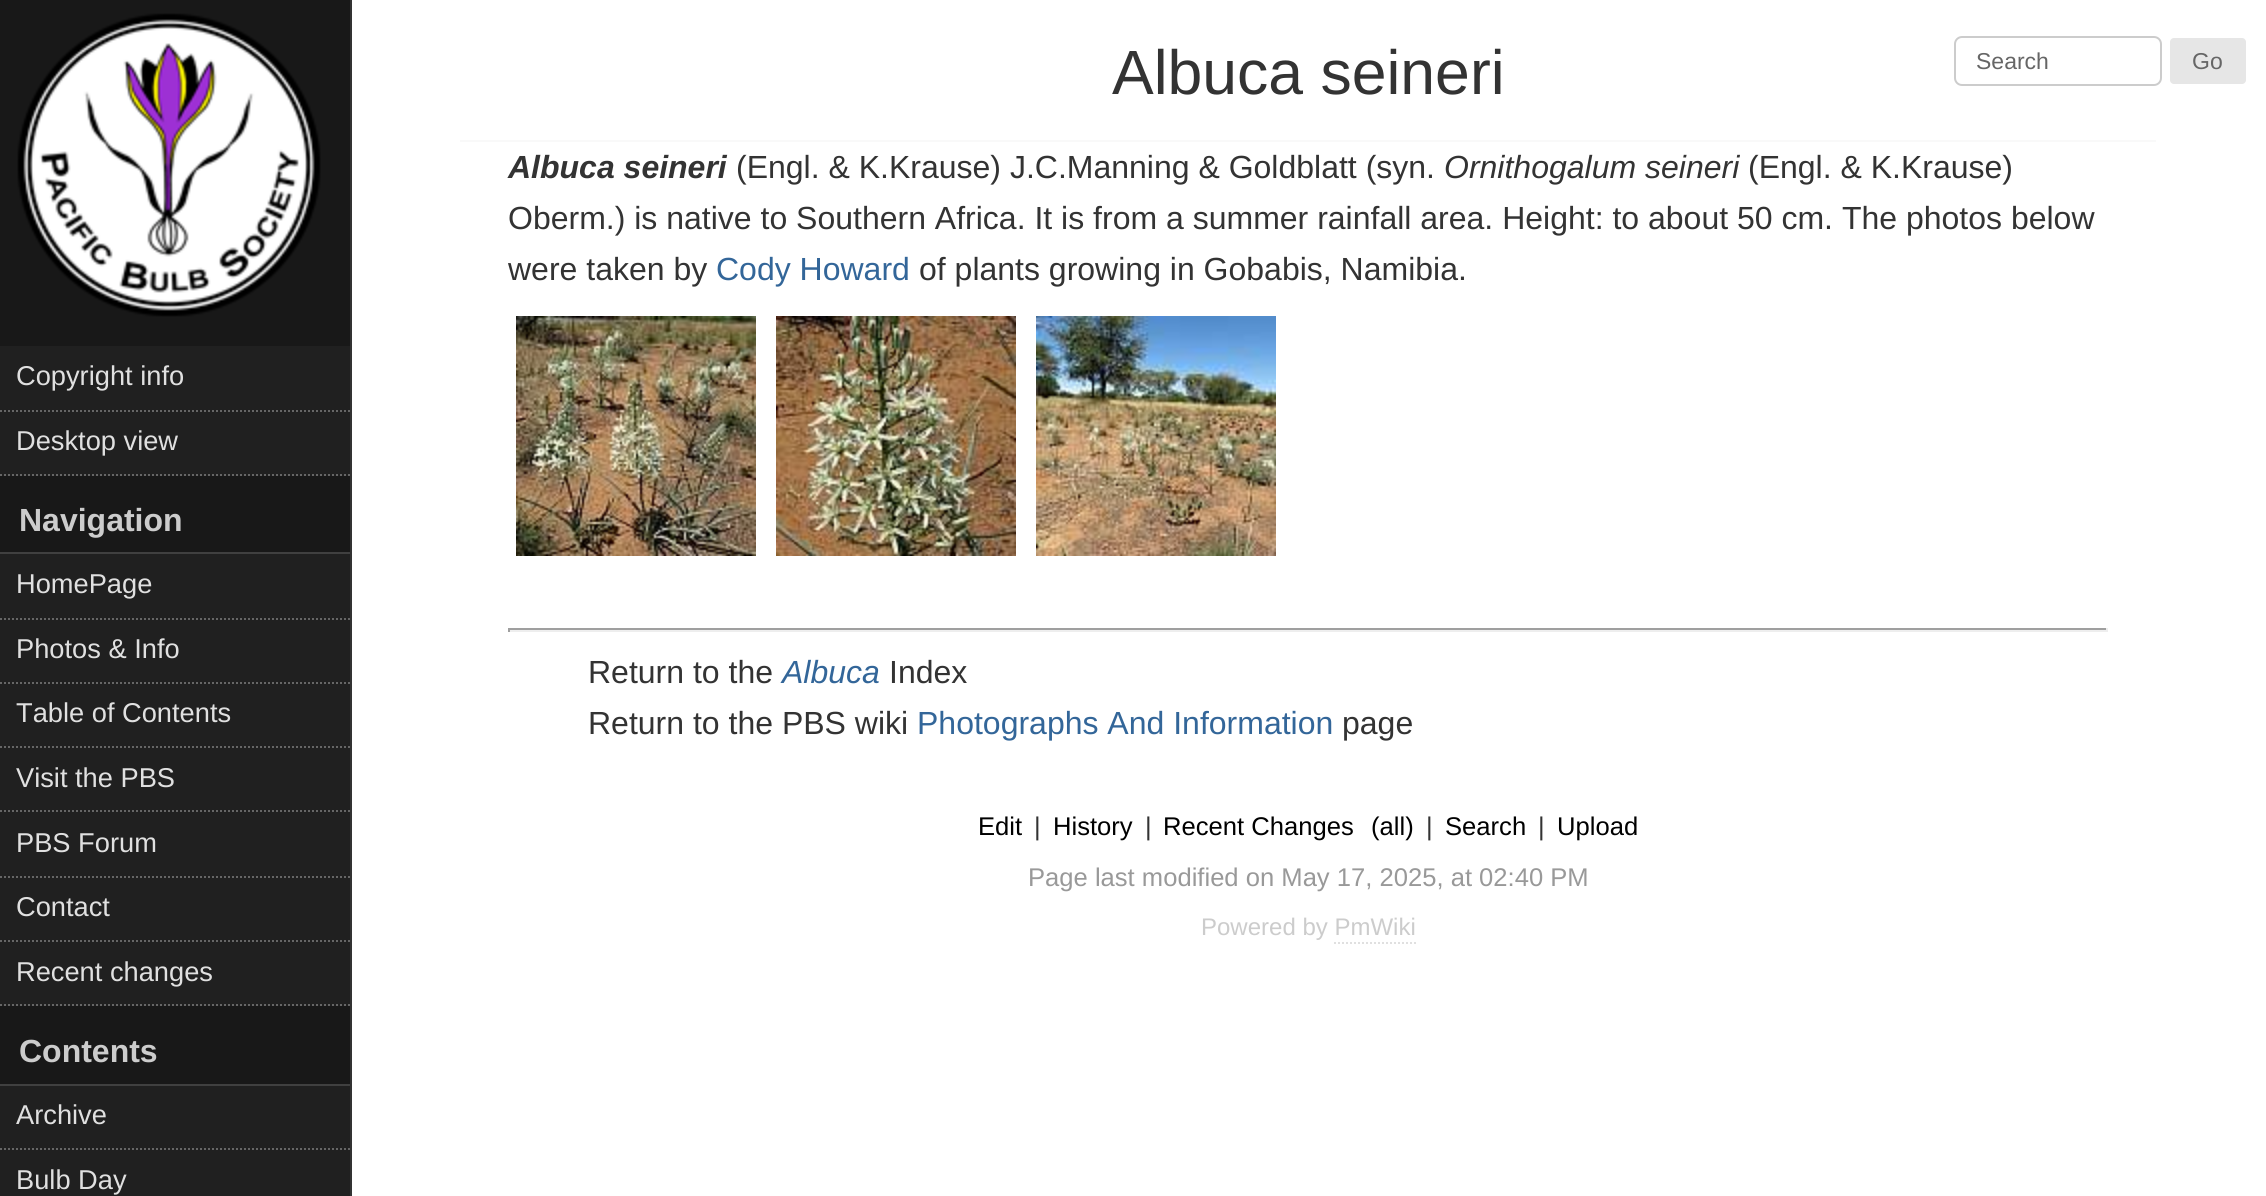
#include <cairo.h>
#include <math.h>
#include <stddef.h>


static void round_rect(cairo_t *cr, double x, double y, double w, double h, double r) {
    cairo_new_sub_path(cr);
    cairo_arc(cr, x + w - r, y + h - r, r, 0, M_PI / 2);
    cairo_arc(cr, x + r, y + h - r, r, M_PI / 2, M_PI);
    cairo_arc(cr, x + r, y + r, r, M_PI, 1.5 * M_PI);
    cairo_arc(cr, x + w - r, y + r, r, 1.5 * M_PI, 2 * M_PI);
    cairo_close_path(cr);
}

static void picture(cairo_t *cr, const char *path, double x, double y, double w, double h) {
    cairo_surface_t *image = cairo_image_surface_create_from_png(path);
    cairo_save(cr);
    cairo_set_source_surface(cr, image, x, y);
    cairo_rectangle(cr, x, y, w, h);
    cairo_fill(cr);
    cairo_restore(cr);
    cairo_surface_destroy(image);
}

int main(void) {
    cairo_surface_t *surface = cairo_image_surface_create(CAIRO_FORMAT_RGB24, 2266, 1196);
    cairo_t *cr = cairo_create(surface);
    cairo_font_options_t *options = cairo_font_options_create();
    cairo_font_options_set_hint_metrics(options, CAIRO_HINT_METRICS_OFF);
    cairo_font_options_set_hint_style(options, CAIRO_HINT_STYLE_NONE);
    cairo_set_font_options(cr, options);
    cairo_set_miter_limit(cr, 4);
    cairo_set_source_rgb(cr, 1, 1, 1);
    cairo_paint(cr);
    cairo_set_source_rgb(cr, 0.976, 0.976, 0.976);
    cairo_rectangle(cr, 460, 140, 1696, 2);
    cairo_fill(cr);
    cairo_select_font_face(cr, "Liberation Sans", CAIRO_FONT_SLANT_NORMAL, CAIRO_FONT_WEIGHT_NORMAL);
    cairo_set_font_size(cr, 62.5);
    cairo_set_source_rgb(cr, 0.2, 0.2, 0.2);
    cairo_move_to(cr, 1112, 94);
    cairo_show_text(cr, "Albuca seineri");
    round_rect(cr, 1955, 37, 206, 48, 7);
    cairo_set_source_rgb(cr, 0.8, 0.8, 0.8);
    cairo_stroke(cr);
    cairo_set_font_size(cr, 23);
    cairo_set_source_rgb(cr, 0.4, 0.4, 0.4);
    cairo_move_to(cr, 1976, 69);
    cairo_show_text(cr, "Search");
    cairo_set_source_rgb(cr, 0.902, 0.902, 0.902);
    round_rect(cr, 2170, 38, 76, 46, 4);
    cairo_fill(cr);
    cairo_set_source_rgb(cr, 0.4, 0.4, 0.4);
    cairo_move_to(cr, 2192, 69);
    cairo_show_text(cr, "Go");
    cairo_set_source_rgb(cr, 0.094, 0.094, 0.094);
    cairo_rectangle(cr, 0, 0, 350, 1084);
    cairo_fill(cr);
    cairo_set_source_rgb(cr, 0.2, 0.2, 0.2);
    cairo_rectangle(cr, 350, 0, 2, 1196);
    cairo_fill(cr);
    picture(cr, "img1.png", 17, 13, 304, 304);
    cairo_set_source_rgb(cr, 0.125, 0.125, 0.125);
    cairo_rectangle(cr, 0, 346, 350, 130);
    cairo_fill(cr);
    cairo_new_path(cr);
    cairo_move_to(cr, 0, 411);
    cairo_line_to(cr, 350, 411);
    cairo_set_source_rgb(cr, 0.4, 0.4, 0.4);
    cairo_set_dash(cr, (double[]){2, 2}, 2, 0);
    cairo_stroke(cr);
    cairo_set_font_size(cr, 27.25);
    cairo_set_source_rgb(cr, 0.878, 0.878, 0.878);
    cairo_move_to(cr, 16, 385);
    cairo_show_text(cr, "Copyright info");
    cairo_new_path(cr);
    cairo_move_to(cr, 0, 475);
    cairo_line_to(cr, 350, 475);
    cairo_set_source_rgb(cr, 0.4, 0.4, 0.4);
    cairo_stroke(cr);
    cairo_set_source_rgb(cr, 0.878, 0.878, 0.878);
    cairo_move_to(cr, 16, 450);
    cairo_show_text(cr, "Desktop view");
    cairo_set_source_rgb(cr, 0.251, 0.251, 0.251);
    cairo_rectangle(cr, 0, 552, 350, 2);
    cairo_fill(cr);
    cairo_select_font_face(cr, "Liberation Sans", CAIRO_FONT_SLANT_NORMAL, CAIRO_FONT_WEIGHT_BOLD);
    cairo_set_font_size(cr, 32);
    cairo_set_source_rgb(cr, 0.8, 0.8, 0.8);
    cairo_move_to(cr, 19, 531);
    cairo_show_text(cr, "Navigation");
    cairo_set_source_rgb(cr, 0.125, 0.125, 0.125);
    cairo_rectangle(cr, 0, 554, 350, 452);
    cairo_fill(cr);
    cairo_new_path(cr);
    cairo_move_to(cr, 0, 619);
    cairo_line_to(cr, 350, 619);
    cairo_set_source_rgb(cr, 0.4, 0.4, 0.4);
    cairo_stroke(cr);
    cairo_select_font_face(cr, "Liberation Sans", CAIRO_FONT_SLANT_NORMAL, CAIRO_FONT_WEIGHT_NORMAL);
    cairo_set_font_size(cr, 27.25);
    cairo_set_source_rgb(cr, 0.878, 0.878, 0.878);
    cairo_move_to(cr, 16, 593);
    cairo_show_text(cr, "HomePage");
    cairo_new_path(cr);
    cairo_move_to(cr, 0, 683);
    cairo_line_to(cr, 350, 683);
    cairo_set_source_rgb(cr, 0.4, 0.4, 0.4);
    cairo_stroke(cr);
    cairo_set_source_rgb(cr, 0.878, 0.878, 0.878);
    cairo_move_to(cr, 16, 658);
    cairo_show_text(cr, "Photos & Info");
    cairo_new_path(cr);
    cairo_move_to(cr, 0, 747);
    cairo_line_to(cr, 350, 747);
    cairo_set_source_rgb(cr, 0.4, 0.4, 0.4);
    cairo_stroke(cr);
    cairo_set_source_rgb(cr, 0.878, 0.878, 0.878);
    cairo_move_to(cr, 16, 722);
    cairo_show_text(cr, "Table of Contents");
    cairo_new_path(cr);
    cairo_move_to(cr, 0, 811);
    cairo_line_to(cr, 350, 811);
    cairo_set_source_rgb(cr, 0.4, 0.4, 0.4);
    cairo_stroke(cr);
    cairo_set_source_rgb(cr, 0.878, 0.878, 0.878);
    cairo_move_to(cr, 16, 787);
    cairo_show_text(cr, "Visit the PBS");
    cairo_new_path(cr);
    cairo_move_to(cr, 0, 877);
    cairo_line_to(cr, 350, 877);
    cairo_set_source_rgb(cr, 0.4, 0.4, 0.4);
    cairo_stroke(cr);
    cairo_set_source_rgb(cr, 0.878, 0.878, 0.878);
    cairo_move_to(cr, 16, 852);
    cairo_show_text(cr, "PBS Forum");
    cairo_new_path(cr);
    cairo_move_to(cr, 0, 941);
    cairo_line_to(cr, 350, 941);
    cairo_set_source_rgb(cr, 0.4, 0.4, 0.4);
    cairo_stroke(cr);
    cairo_set_source_rgb(cr, 0.878, 0.878, 0.878);
    cairo_move_to(cr, 16, 916);
    cairo_show_text(cr, "Contact");
    cairo_new_path(cr);
    cairo_move_to(cr, 0, 1005);
    cairo_line_to(cr, 350, 1005);
    cairo_set_source_rgb(cr, 0.4, 0.4, 0.4);
    cairo_stroke(cr);
    cairo_set_source_rgb(cr, 0.878, 0.878, 0.878);
    cairo_move_to(cr, 16, 981);
    cairo_show_text(cr, "Recent changes");
    cairo_set_source_rgb(cr, 0.251, 0.251, 0.251);
    cairo_rectangle(cr, 0, 1084, 350, 2);
    cairo_fill(cr);
    cairo_select_font_face(cr, "Liberation Sans", CAIRO_FONT_SLANT_NORMAL, CAIRO_FONT_WEIGHT_BOLD);
    cairo_set_font_size(cr, 32);
    cairo_set_source_rgb(cr, 0.8, 0.8, 0.8);
    cairo_move_to(cr, 19, 1062);
    cairo_show_text(cr, "Contents");
    cairo_set_source_rgb(cr, 0.125, 0.125, 0.125);
    cairo_rectangle(cr, 0, 1086, 350, 110);
    cairo_fill(cr);
    cairo_new_path(cr);
    cairo_move_to(cr, 0, 1149);
    cairo_line_to(cr, 350, 1149);
    cairo_set_source_rgb(cr, 0.4, 0.4, 0.4);
    cairo_stroke(cr);
    cairo_select_font_face(cr, "Liberation Sans", CAIRO_FONT_SLANT_NORMAL, CAIRO_FONT_WEIGHT_NORMAL);
    cairo_set_font_size(cr, 27.25);
    cairo_set_source_rgb(cr, 0.878, 0.878, 0.878);
    cairo_move_to(cr, 16, 1124);
    cairo_show_text(cr, "Archive");
    cairo_move_to(cr, 16, 1189);
    cairo_show_text(cr, "Bulb Day");
    cairo_select_font_face(cr, "Liberation Sans", CAIRO_FONT_SLANT_ITALIC, CAIRO_FONT_WEIGHT_BOLD);
    cairo_set_font_size(cr, 32);
    cairo_set_source_rgb(cr, 0.2, 0.2, 0.2);
    cairo_move_to(cr, 508, 178);
    cairo_show_text(cr, "Albuca seineri");
    cairo_select_font_face(cr, "Liberation Sans", CAIRO_FONT_SLANT_NORMAL, CAIRO_FONT_WEIGHT_NORMAL);
    cairo_move_to(cr, 736, 178);
    cairo_show_text(cr, "(Engl. & K.Krause) J.C.Manning & Goldblatt (syn.");
    cairo_select_font_face(cr, "Liberation Sans", CAIRO_FONT_SLANT_ITALIC, CAIRO_FONT_WEIGHT_NORMAL);
    cairo_move_to(cr, 1444, 178);
    cairo_show_text(cr, "Ornithogalum seineri");
    cairo_select_font_face(cr, "Liberation Sans", CAIRO_FONT_SLANT_NORMAL, CAIRO_FONT_WEIGHT_NORMAL);
    cairo_move_to(cr, 1748, 178);
    cairo_show_text(cr, "(Engl. & K.Krause)");
    cairo_move_to(cr, 508, 229);
    cairo_show_text(cr, "Oberm.) is native to Southern Africa. It is from a summer rainfall area. Height: to about 50 cm. The photos below");
    cairo_move_to(cr, 508, 280);
    cairo_show_text(cr, "were taken by");
    cairo_set_source_rgb(cr, 0.2, 0.4, 0.6);
    cairo_move_to(cr, 716, 280);
    cairo_show_text(cr, "Cody Howard");
    cairo_set_source_rgb(cr, 0.2, 0.2, 0.2);
    cairo_move_to(cr, 919, 280);
    cairo_show_text(cr, "of plants growing in Gobabis, Namibia.");
    picture(cr, "img2.png", 516, 316, 240, 240);
    picture(cr, "img3.png", 776, 316, 240, 240);
    picture(cr, "img4.png", 1036, 316, 240, 240);
    cairo_set_source_rgb(cr, 0.624, 0.624, 0.624);
    cairo_rectangle(cr, 508, 628, 1600, 2);
    cairo_fill(cr);
    cairo_set_source_rgb(cr, 0.933, 0.933, 0.933);
    cairo_rectangle(cr, 2106, 628, 2, 4);
    cairo_fill(cr);
    cairo_rectangle(cr, 508, 630, 1600, 2);
    cairo_fill(cr);
    cairo_set_source_rgb(cr, 0.624, 0.624, 0.624);
    cairo_rectangle(cr, 508, 628, 2, 4);
    cairo_fill(cr);
    cairo_set_source_rgb(cr, 0.2, 0.2, 0.2);
    cairo_move_to(cr, 588, 683);
    cairo_show_text(cr, "Return to the");
    cairo_select_font_face(cr, "Liberation Sans", CAIRO_FONT_SLANT_ITALIC, CAIRO_FONT_WEIGHT_NORMAL);
    cairo_set_source_rgb(cr, 0.2, 0.4, 0.6);
    cairo_move_to(cr, 782, 683);
    cairo_show_text(cr, "Albuca");
    cairo_select_font_face(cr, "Liberation Sans", CAIRO_FONT_SLANT_NORMAL, CAIRO_FONT_WEIGHT_NORMAL);
    cairo_set_source_rgb(cr, 0.2, 0.2, 0.2);
    cairo_move_to(cr, 889, 683);
    cairo_show_text(cr, "Index");
    cairo_move_to(cr, 588, 734);
    cairo_show_text(cr, "Return to the PBS wiki");
    cairo_set_source_rgb(cr, 0.2, 0.4, 0.6);
    cairo_move_to(cr, 917, 734);
    cairo_show_text(cr, "Photographs And Information");
    cairo_set_source_rgb(cr, 0.2, 0.2, 0.2);
    cairo_move_to(cr, 1342, 734);
    cairo_show_text(cr, "page");
    cairo_set_font_size(cr, 25.6);
    cairo_set_source_rgb(cr, 0, 0, 0);
    cairo_move_to(cr, 978, 835);
    cairo_show_text(cr, "Edit");
    cairo_set_source_rgb(cr, 0.2, 0.2, 0.2);
    cairo_move_to(cr, 1034, 835);
    cairo_show_text(cr, "|");
    cairo_set_source_rgb(cr, 0, 0, 0);
    cairo_move_to(cr, 1053, 835);
    cairo_show_text(cr, "History");
    cairo_set_source_rgb(cr, 0.2, 0.2, 0.2);
    cairo_move_to(cr, 1145, 835);
    cairo_show_text(cr, "|");
    cairo_set_source_rgb(cr, 0, 0, 0);
    cairo_move_to(cr, 1163, 835);
    cairo_show_text(cr, "Recent Changes");
    cairo_move_to(cr, 1371, 835);
    cairo_show_text(cr, "(all)");
    cairo_set_source_rgb(cr, 0.2, 0.2, 0.2);
    cairo_move_to(cr, 1426, 835);
    cairo_show_text(cr, "|");
    cairo_set_source_rgb(cr, 0, 0, 0);
    cairo_move_to(cr, 1445, 835);
    cairo_show_text(cr, "Search");
    cairo_set_source_rgb(cr, 0.2, 0.2, 0.2);
    cairo_move_to(cr, 1538, 835);
    cairo_show_text(cr, "|");
    cairo_set_source_rgb(cr, 0, 0, 0);
    cairo_move_to(cr, 1557, 835);
    cairo_show_text(cr, "Upload");
    cairo_set_source_rgb(cr, 0.6, 0.6, 0.6);
    cairo_move_to(cr, 1028, 886);
    cairo_show_text(cr, "Page last modified on May 17, 2025, at 02:40 PM");
    cairo_set_font_size(cr, 24);
    cairo_set_source_rgb(cr, 0.8, 0.8, 0.8);
    cairo_move_to(cr, 1201, 935);
    cairo_show_text(cr, "Powered by PmWiki");
    cairo_new_path(cr);
    cairo_move_to(cr, 1334, 943);
    cairo_line_to(cr, 1416, 943);
    cairo_set_source_rgb(cr, 0.878, 0.878, 0.878);
    cairo_stroke(cr);
    cairo_surface_write_to_png(surface, "page.png");
    cairo_font_options_destroy(options);
    cairo_destroy(cr);
    cairo_surface_destroy(surface);
    return 0;
}
